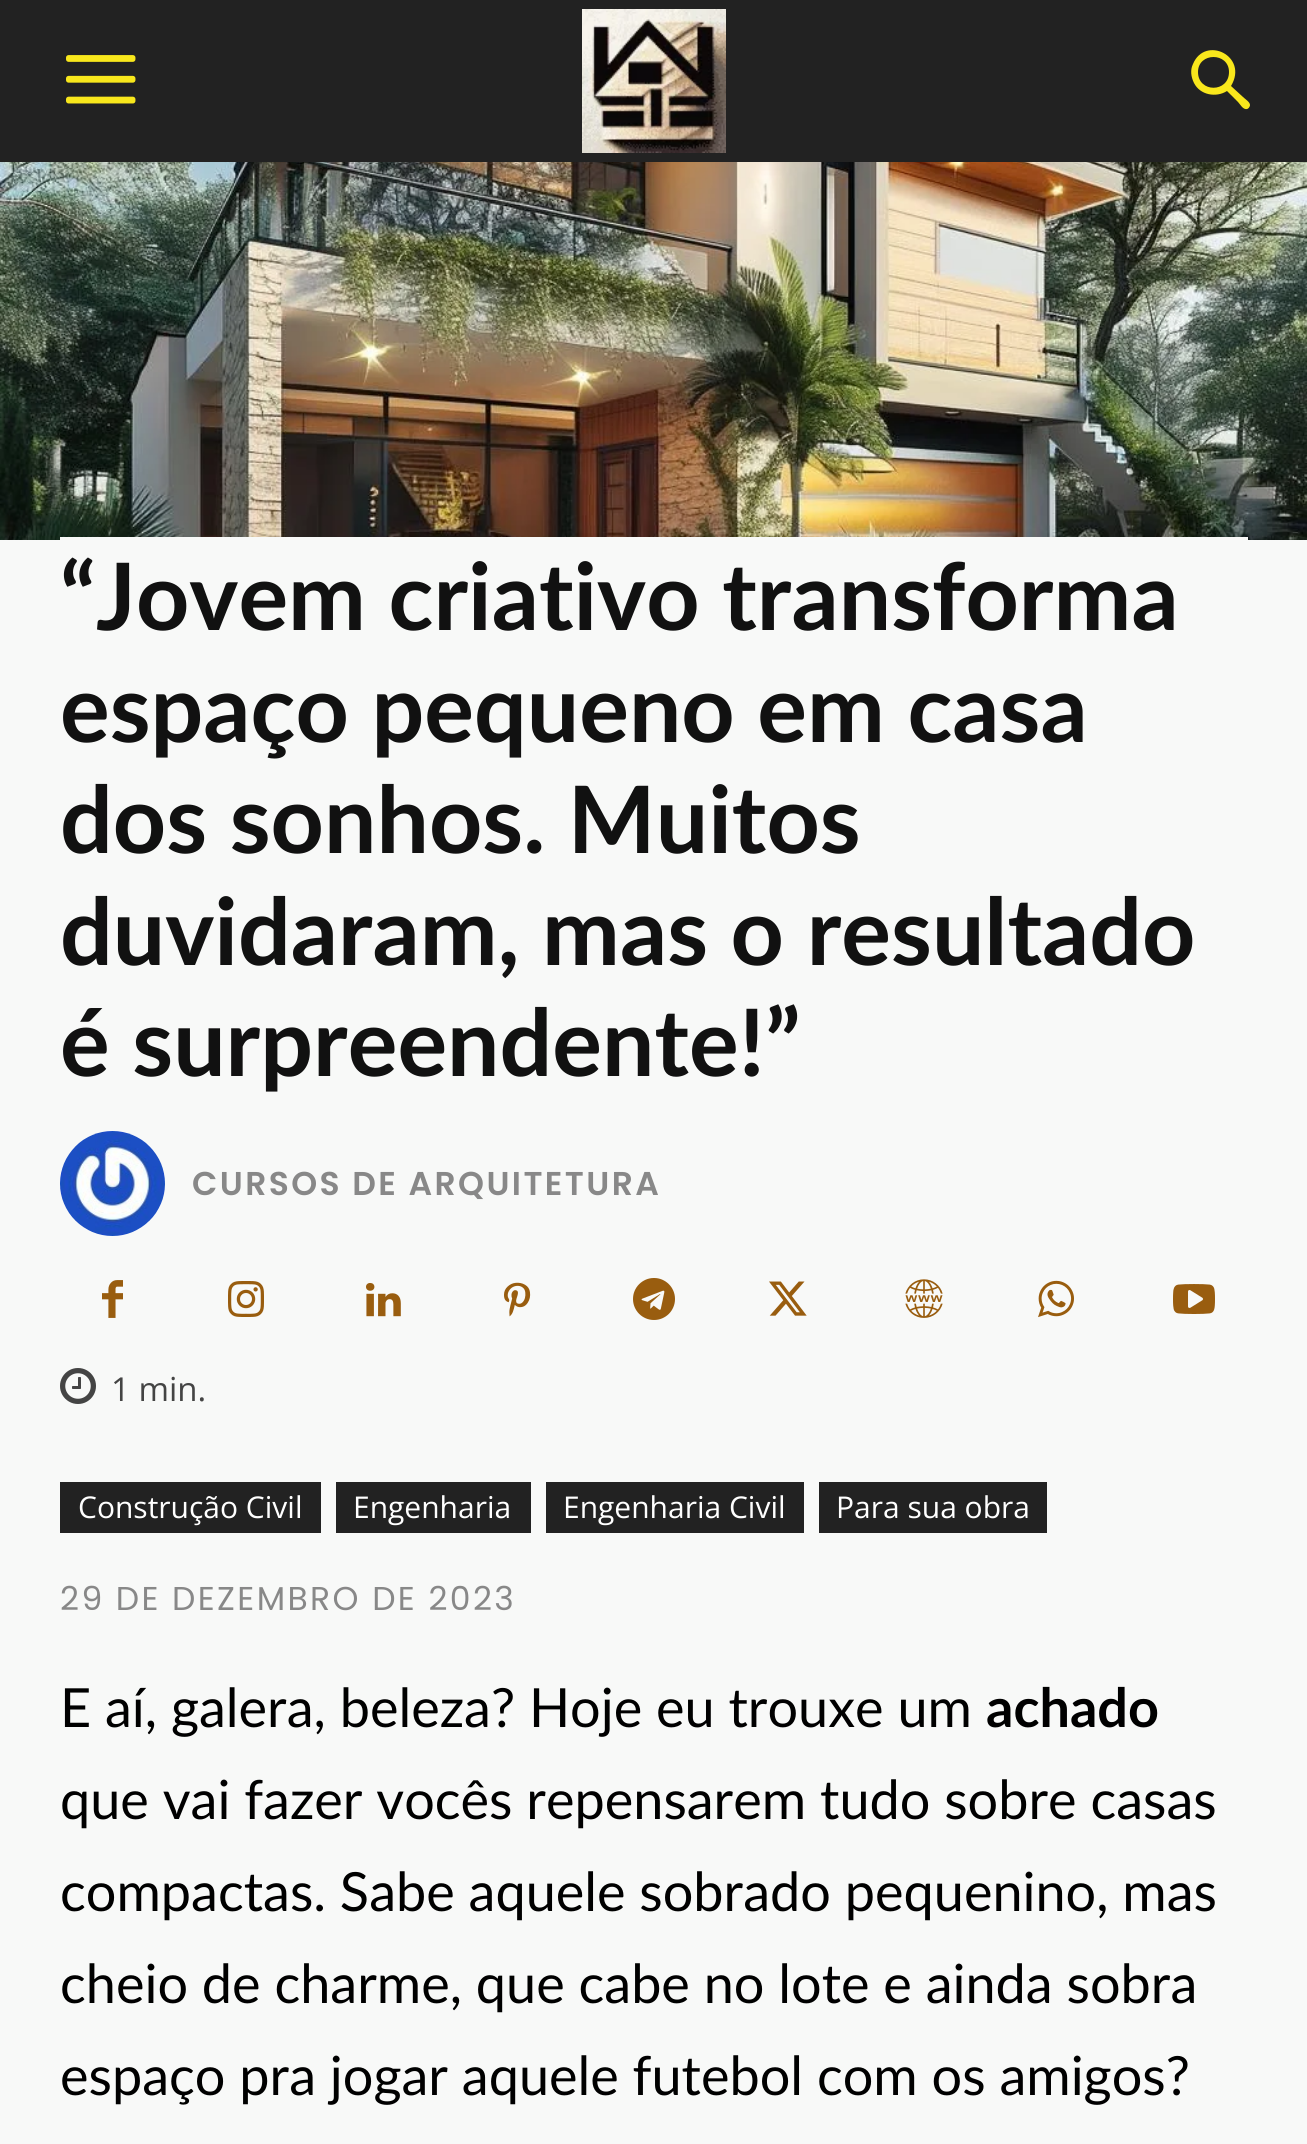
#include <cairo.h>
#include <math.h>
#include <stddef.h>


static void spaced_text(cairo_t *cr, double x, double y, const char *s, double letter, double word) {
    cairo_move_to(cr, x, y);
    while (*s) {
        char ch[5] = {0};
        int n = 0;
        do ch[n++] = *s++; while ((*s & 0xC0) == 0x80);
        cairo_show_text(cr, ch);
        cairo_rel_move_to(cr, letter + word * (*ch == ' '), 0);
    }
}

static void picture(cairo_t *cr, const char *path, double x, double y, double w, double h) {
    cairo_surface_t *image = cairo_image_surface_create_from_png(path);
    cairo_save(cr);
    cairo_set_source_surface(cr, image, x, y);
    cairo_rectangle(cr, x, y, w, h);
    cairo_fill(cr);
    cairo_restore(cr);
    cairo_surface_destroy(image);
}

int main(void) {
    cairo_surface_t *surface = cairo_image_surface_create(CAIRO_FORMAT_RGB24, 1307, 2144);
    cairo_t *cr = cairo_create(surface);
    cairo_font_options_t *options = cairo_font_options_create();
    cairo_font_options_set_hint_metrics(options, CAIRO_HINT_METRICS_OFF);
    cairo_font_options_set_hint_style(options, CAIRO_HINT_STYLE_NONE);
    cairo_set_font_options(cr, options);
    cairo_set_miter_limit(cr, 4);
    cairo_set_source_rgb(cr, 0.969, 0.973, 0.969);
    cairo_paint(cr);
    cairo_set_source_rgb(cr, 0.133, 0.133, 0.133);
    cairo_rectangle(cr, 0, 0, 1307, 162);
    cairo_fill(cr);
    picture(cr, "img1.png", 66, 55, 70, 49);
    picture(cr, "img2.png", 582, 9, 144, 144);
    cairo_set_source_rgb(cr, 0.973, 0.906, 0.11);
    cairo_new_path(cr);
    cairo_move_to(cr, 1229, 72);
    cairo_curve_to(cr, 1229, 93, 1198, 93, 1198, 72);
    cairo_curve_to(cr, 1198, 52, 1229, 52, 1229, 72);
    cairo_close_path(cr);
    cairo_move_to(cr, 1250, 105);
    cairo_curve_to(cr, 1250, 102, 1245, 99, 1243, 97);
    cairo_line_to(cr, 1231, 86);
    cairo_curve_to(cr, 1249, 56, 1205, 35, 1193, 64);
    cairo_curve_to(cr, 1190, 70, 1191, 77, 1194, 83);
    cairo_curve_to(cr, 1200, 95, 1216, 98, 1227, 91);
    cairo_line_to(cr, 1238, 102);
    cairo_curve_to(cr, 1240, 104, 1243, 110, 1247, 109);
    cairo_curve_to(cr, 1248, 109, 1250, 107, 1250, 105);
    cairo_close_path(cr);
    cairo_fill(cr);
    picture(cr, "img3.png", 0, 162, 1307, 378);
    cairo_set_source_rgb(cr, 0.969, 0.973, 0.969);
    cairo_rectangle(cr, 60, 537, 1188, 3);
    cairo_fill(cr);
    cairo_select_font_face(cr, "Lato", CAIRO_FONT_SLANT_NORMAL, CAIRO_FONT_WEIGHT_BOLD);
    cairo_set_font_size(cr, 93);
    cairo_set_source_rgb(cr, 0.067, 0.067, 0.067);
    cairo_move_to(cr, 60, 630);
    cairo_show_text(cr, "“Jovem criativo transforma");
    cairo_move_to(cr, 60, 742);
    cairo_show_text(cr, "espaço pequeno em casa");
    cairo_move_to(cr, 60, 853);
    cairo_show_text(cr, "dos sonhos. Muitos");
    cairo_move_to(cr, 60, 965);
    cairo_show_text(cr, "duvidaram, mas o resultado");
    cairo_move_to(cr, 60, 1076);
    cairo_show_text(cr, "é surpreendente!”");
    picture(cr, "img4.png", 60, 1131, 105, 105);
    cairo_select_font_face(cr, "Poppins SemiBold", CAIRO_FONT_SLANT_NORMAL, CAIRO_FONT_WEIGHT_NORMAL);
    cairo_set_font_size(cr, 33);
    cairo_set_source_rgb(cr, 0.533, 0.533, 0.533);
    spaced_text(cr, 192, 1195, "CURSOS DE ARQUITETURA", 2.4, 0);
    picture(cr, "img5.png", 102, 1280, 21, 38);
    picture(cr, "img6.png", 228, 1281, 36, 36);
    picture(cr, "img7.png", 366, 1283, 35, 34);
    picture(cr, "img8.png", 504, 1282, 27, 35);
    picture(cr, "img9.png", 633, 1278, 42, 42);
    picture(cr, "img10.png", 769, 1281, 38, 35);
    picture(cr, "img11.png", 905, 1279, 38, 39);
    picture(cr, "img12.png", 1038, 1280, 36, 38);
    picture(cr, "img13.png", 1173, 1284, 42, 30);
    picture(cr, "img14.png", 60, 1368, 36, 36);
    cairo_select_font_face(cr, "Open Sans", CAIRO_FONT_SLANT_NORMAL, CAIRO_FONT_WEIGHT_NORMAL);
    cairo_set_source_rgb(cr, 0.267, 0.267, 0.267);
    cairo_move_to(cr, 111, 1401);
    cairo_show_text(cr, "1 min.");
    cairo_set_source_rgb(cr, 0.133, 0.133, 0.133);
    cairo_rectangle(cr, 60, 1482, 261, 51);
    cairo_fill(cr);
    cairo_set_font_size(cr, 30);
    cairo_set_source_rgb(cr, 1, 1, 1);
    cairo_move_to(cr, 78, 1518);
    cairo_show_text(cr, "Construção Civil");
    cairo_set_source_rgb(cr, 0.133, 0.133, 0.133);
    cairo_rectangle(cr, 336, 1482, 195, 51);
    cairo_fill(cr);
    cairo_set_source_rgb(cr, 1, 1, 1);
    cairo_move_to(cr, 353, 1518);
    cairo_show_text(cr, "Engenharia");
    cairo_set_source_rgb(cr, 0.133, 0.133, 0.133);
    cairo_rectangle(cr, 546, 1482, 258, 51);
    cairo_fill(cr);
    cairo_set_source_rgb(cr, 1, 1, 1);
    cairo_move_to(cr, 563, 1518);
    cairo_show_text(cr, "Engenharia Civil");
    cairo_set_source_rgb(cr, 0.133, 0.133, 0.133);
    cairo_rectangle(cr, 819, 1482, 228, 51);
    cairo_fill(cr);
    cairo_set_source_rgb(cr, 1, 1, 1);
    cairo_move_to(cr, 836, 1518);
    cairo_show_text(cr, "Para sua obra");
    cairo_select_font_face(cr, "Poppins", CAIRO_FONT_SLANT_NORMAL, CAIRO_FONT_WEIGHT_NORMAL);
    cairo_set_font_size(cr, 33);
    cairo_set_source_rgb(cr, 0.533, 0.533, 0.533);
    spaced_text(cr, 60, 1610, "29 DE DEZEMBRO DE 2023", 2.4, 0);
    cairo_select_font_face(cr, "Lato", CAIRO_FONT_SLANT_NORMAL, CAIRO_FONT_WEIGHT_NORMAL);
    cairo_set_font_size(cr, 54);
    cairo_set_source_rgb(cr, 0, 0, 0);
    cairo_move_to(cr, 60, 1727);
    cairo_show_text(cr, "E aí, galera, beleza? Hoje eu trouxe um");
    cairo_select_font_face(cr, "Lato", CAIRO_FONT_SLANT_NORMAL, CAIRO_FONT_WEIGHT_BOLD);
    cairo_move_to(cr, 986, 1727);
    cairo_show_text(cr, "achado");
    cairo_select_font_face(cr, "Lato", CAIRO_FONT_SLANT_NORMAL, CAIRO_FONT_WEIGHT_NORMAL);
    cairo_move_to(cr, 60, 1819);
    cairo_show_text(cr, "que vai fazer vocês repensarem tudo sobre casas");
    cairo_move_to(cr, 60, 1911);
    cairo_show_text(cr, "compactas. Sabe aquele sobrado pequenino, mas");
    cairo_move_to(cr, 60, 2003);
    cairo_show_text(cr, "cheio de charme, que cabe no lote e ainda sobra");
    cairo_move_to(cr, 60, 2095);
    cairo_show_text(cr, "espaço pra jogar aquele futebol com os amigos?");
    cairo_surface_write_to_png(surface, "page.png");
    cairo_font_options_destroy(options);
    cairo_destroy(cr);
    cairo_surface_destroy(surface);
    return 0;
}
